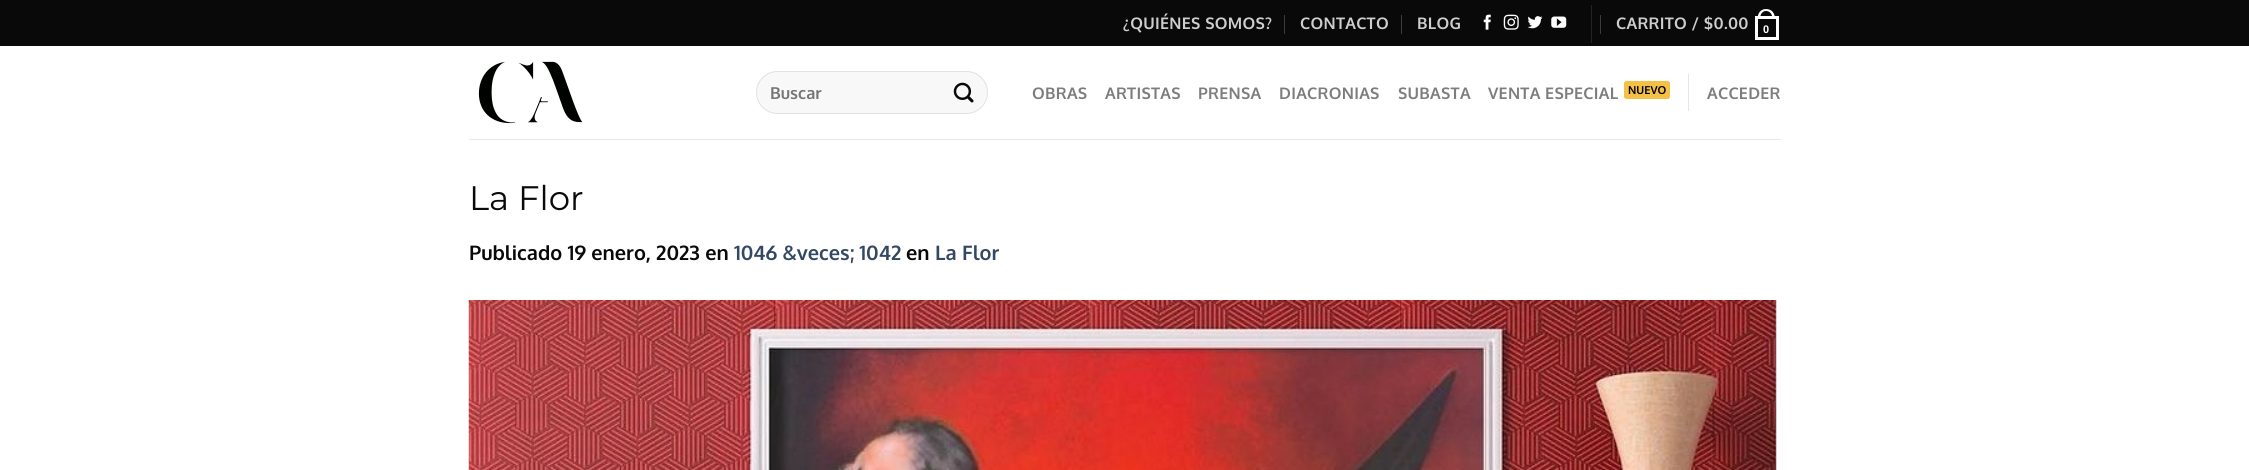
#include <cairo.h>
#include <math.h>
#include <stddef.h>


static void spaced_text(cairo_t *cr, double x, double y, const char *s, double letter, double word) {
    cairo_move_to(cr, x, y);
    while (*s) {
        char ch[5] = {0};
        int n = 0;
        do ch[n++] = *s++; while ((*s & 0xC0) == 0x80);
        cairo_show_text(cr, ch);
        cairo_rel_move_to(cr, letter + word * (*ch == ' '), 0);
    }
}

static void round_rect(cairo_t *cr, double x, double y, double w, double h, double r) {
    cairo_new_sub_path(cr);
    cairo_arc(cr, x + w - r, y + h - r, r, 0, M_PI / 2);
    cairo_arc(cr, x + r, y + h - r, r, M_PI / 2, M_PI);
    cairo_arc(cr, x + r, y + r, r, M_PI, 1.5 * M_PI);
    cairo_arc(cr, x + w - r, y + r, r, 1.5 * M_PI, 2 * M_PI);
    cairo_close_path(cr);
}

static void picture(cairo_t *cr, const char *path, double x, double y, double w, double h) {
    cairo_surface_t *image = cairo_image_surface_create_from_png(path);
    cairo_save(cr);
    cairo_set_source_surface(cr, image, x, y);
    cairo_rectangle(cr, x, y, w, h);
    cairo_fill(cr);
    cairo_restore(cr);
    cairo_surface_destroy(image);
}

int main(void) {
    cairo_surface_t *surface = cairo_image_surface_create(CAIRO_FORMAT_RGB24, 2249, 470);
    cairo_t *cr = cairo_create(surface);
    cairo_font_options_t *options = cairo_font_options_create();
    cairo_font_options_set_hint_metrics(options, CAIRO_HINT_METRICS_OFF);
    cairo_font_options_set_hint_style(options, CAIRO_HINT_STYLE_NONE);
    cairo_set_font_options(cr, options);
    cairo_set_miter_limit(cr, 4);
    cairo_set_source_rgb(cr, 1, 1, 1);
    cairo_paint(cr);
    cairo_set_source_rgb(cr, 0.039, 0.039, 0.039);
    cairo_rectangle(cr, 0, 0, 2249, 46);
    cairo_fill(cr);
    cairo_select_font_face(cr, "Oxygen", CAIRO_FONT_SLANT_NORMAL, CAIRO_FONT_WEIGHT_BOLD);
    cairo_set_font_size(cr, 16);
    cairo_set_source_rgb(cr, 0.808, 0.808, 0.808);
    spaced_text(cr, 1123, 29, "¿QUIÉNES SOMOS?", 0.3, 0);
    cairo_set_source_rgb(cr, 0.231, 0.231, 0.231);
    cairo_rectangle(cr, 1284, 15, 1, 19);
    cairo_fill(cr);
    cairo_set_source_rgb(cr, 0.808, 0.808, 0.808);
    spaced_text(cr, 1300, 29, "CONTACTO", 0.3, 0);
    cairo_set_source_rgb(cr, 0.231, 0.231, 0.231);
    cairo_rectangle(cr, 1401, 15, 1, 19);
    cairo_fill(cr);
    cairo_set_source_rgb(cr, 0.808, 0.808, 0.808);
    spaced_text(cr, 1417, 29, "BLOG", 0.3, 0);
    picture(cr, "img1.png", 1483, 14, 8, 16);
    picture(cr, "img2.png", 1503, 14, 16, 16);
    picture(cr, "img3.png", 1527, 16, 16, 13);
    picture(cr, "img4.png", 1551, 16, 16, 12);
    cairo_set_source_rgb(cr, 0.137, 0.137, 0.137);
    cairo_rectangle(cr, 1591, 5, 1, 38);
    cairo_fill(cr);
    cairo_set_source_rgb(cr, 0.231, 0.231, 0.231);
    cairo_rectangle(cr, 1600, 15, 1, 19);
    cairo_fill(cr);
    cairo_set_source_rgb(cr, 0.808, 0.808, 0.808);
    spaced_text(cr, 1616, 29, "CARRITO / $0.00", 0.3, 0);
    cairo_rectangle(cr, 1756.5, 17.5, 21, 21);
    cairo_set_source_rgb(cr, 1, 1, 1);
    cairo_set_line_width(cr, 3);
    cairo_stroke(cr);
    cairo_set_fill_rule(cr, CAIRO_FILL_RULE_EVEN_ODD);
    cairo_new_path(cr);
    cairo_move_to(cr, 1766, 9);
    cairo_curve_to(cr, 1772, 9, 1775, 13.5, 1775, 19);
    cairo_line_to(cr, 1757.5, 19);
    cairo_curve_to(cr, 1757.5, 13.5, 1760.5, 9, 1766, 9);
    cairo_close_path(cr);
    cairo_move_to(cr, 1766, 11);
    cairo_curve_to(cr, 1770.5, 11, 1772.5, 15, 1772.5, 19);
    cairo_line_to(cr, 1760, 19);
    cairo_curve_to(cr, 1760, 15, 1762, 11, 1766, 11);
    cairo_close_path(cr);
    cairo_fill(cr);
    cairo_select_font_face(cr, "Liberation Sans", CAIRO_FONT_SLANT_NORMAL, CAIRO_FONT_WEIGHT_BOLD);
    cairo_set_font_size(cr, 11);
    spaced_text(cr, 1763, 33, "0", 0.3, 0);
    picture(cr, "img5.png", 478, 61, 105, 63);
    cairo_set_source_rgb(cr, 0.969, 0.969, 0.969);
    round_rect(cr, 756, 71, 232, 43, 21.5);
    cairo_fill(cr);
    round_rect(cr, 756.5, 71.5, 231, 42, 21);
    cairo_set_source_rgba(cr, 0, 0, 0, 0.09);
    cairo_set_line_width(cr, 1);
    cairo_stroke(cr);
    cairo_select_font_face(cr, "Oxygen", CAIRO_FONT_SLANT_NORMAL, CAIRO_FONT_WEIGHT_BOLD);
    cairo_set_font_size(cr, 16.5);
    cairo_set_source_rgb(cr, 0.459, 0.459, 0.459);
    cairo_move_to(cr, 770, 99);
    cairo_show_text(cr, "Buscar");
    picture(cr, "img6.png", 953, 82, 21, 21);
    cairo_set_font_size(cr, 16);
    cairo_set_source_rgb(cr, 0.49, 0.49, 0.49);
    spaced_text(cr, 1032, 99, "OBRAS", 0.3, 0);
    spaced_text(cr, 1105, 99, "ARTISTAS", 0.3, 0);
    spaced_text(cr, 1198, 99, "PRENSA", 0.3, 0);
    spaced_text(cr, 1279, 99, "DIACRONIAS", 0.3, 0);
    spaced_text(cr, 1398, 99, "SUBASTA", 0.3, 0);
    spaced_text(cr, 1488, 99, "VENTA ESPECIAL", 0.3, 0);
    cairo_set_source_rgb(cr, 0.957, 0.753, 0.271);
    round_rect(cr, 1624, 81, 46, 18, 2.5);
    cairo_fill(cr);
    cairo_set_font_size(cr, 11);
    cairo_set_source_rgb(cr, 0, 0, 0);
    cairo_move_to(cr, 1628, 94);
    cairo_show_text(cr, "NUEVO");
    cairo_set_source_rgb(cr, 0.902, 0.902, 0.902);
    cairo_rectangle(cr, 1688, 74, 1, 37);
    cairo_fill(cr);
    cairo_set_font_size(cr, 16);
    cairo_set_source_rgb(cr, 0.49, 0.49, 0.49);
    spaced_text(cr, 1707, 99, "ACCEDER", 0.3, 0);
    cairo_set_source_rgb(cr, 0.906, 0.906, 0.906);
    cairo_rectangle(cr, 469, 139, 1312, 1);
    cairo_fill(cr);
    cairo_select_font_face(cr, "Montserrat", CAIRO_FONT_SLANT_NORMAL, CAIRO_FONT_WEIGHT_NORMAL);
    cairo_set_font_size(cr, 34);
    cairo_set_source_rgb(cr, 0.039, 0.039, 0.039);
    cairo_move_to(cr, 469, 210);
    cairo_show_text(cr, "La Flor");
    cairo_select_font_face(cr, "Oxygen", CAIRO_FONT_SLANT_NORMAL, CAIRO_FONT_WEIGHT_BOLD);
    cairo_set_font_size(cr, 20);
    cairo_move_to(cr, 469, 260);
    cairo_show_text(cr, "Publicado 19 enero, 2023 en");
    cairo_set_source_rgb(cr, 0.2, 0.282, 0.384);
    cairo_move_to(cr, 734, 260);
    cairo_show_text(cr, "1046 &veces; 1042");
    cairo_set_source_rgb(cr, 0.039, 0.039, 0.039);
    cairo_move_to(cr, 906, 260);
    cairo_show_text(cr, "en");
    cairo_set_source_rgb(cr, 0.2, 0.282, 0.384);
    cairo_move_to(cr, 935, 260);
    cairo_show_text(cr, "La Flor");
    picture(cr, "img7.png", 468, 300, 1309, 170);
    cairo_surface_write_to_png(surface, "page.png");
    cairo_font_options_destroy(options);
    cairo_destroy(cr);
    cairo_surface_destroy(surface);
    return 0;
}
